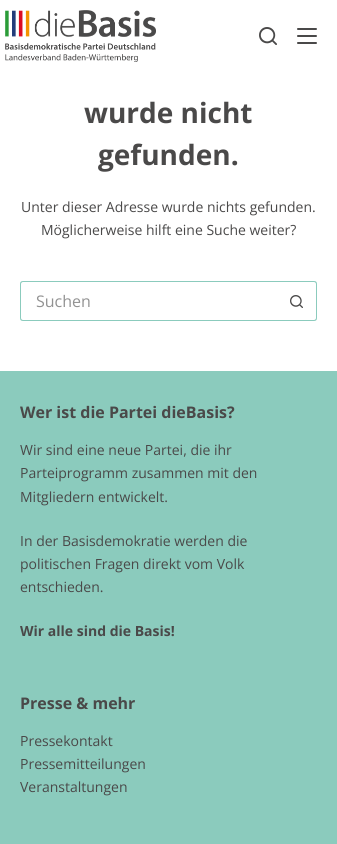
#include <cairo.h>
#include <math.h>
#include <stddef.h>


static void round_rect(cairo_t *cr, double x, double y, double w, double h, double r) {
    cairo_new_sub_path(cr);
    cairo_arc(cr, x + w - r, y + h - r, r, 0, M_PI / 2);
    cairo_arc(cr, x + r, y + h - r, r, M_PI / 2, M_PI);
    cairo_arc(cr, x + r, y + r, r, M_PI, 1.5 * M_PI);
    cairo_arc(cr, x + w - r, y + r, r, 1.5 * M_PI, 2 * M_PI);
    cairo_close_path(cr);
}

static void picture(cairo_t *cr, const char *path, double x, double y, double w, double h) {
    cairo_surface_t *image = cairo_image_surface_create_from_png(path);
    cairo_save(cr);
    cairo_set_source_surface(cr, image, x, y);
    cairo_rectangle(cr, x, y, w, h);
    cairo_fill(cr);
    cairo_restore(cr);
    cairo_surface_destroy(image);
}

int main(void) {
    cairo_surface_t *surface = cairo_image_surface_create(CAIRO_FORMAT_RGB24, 337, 844);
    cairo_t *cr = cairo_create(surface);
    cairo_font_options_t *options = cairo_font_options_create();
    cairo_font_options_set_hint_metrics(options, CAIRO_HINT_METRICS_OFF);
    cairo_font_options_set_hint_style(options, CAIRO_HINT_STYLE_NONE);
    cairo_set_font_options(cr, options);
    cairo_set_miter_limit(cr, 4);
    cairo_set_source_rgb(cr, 1, 1, 1);
    cairo_paint(cr);
    picture(cr, "img1.png", 5, 10, 151, 52);
    picture(cr, "img2.png", 259, 27, 18, 18);
    cairo_set_source_rgb(cr, 0.29, 0.286, 0.286);
    round_rect(cr, 297, 28, 20, 2, 1);
    cairo_fill(cr);
    round_rect(cr, 297, 35, 20, 2, 1);
    cairo_fill(cr);
    round_rect(cr, 297, 42, 20, 2, 1);
    cairo_fill(cr);
    cairo_select_font_face(cr, "Open Sans", CAIRO_FONT_SLANT_NORMAL, CAIRO_FONT_WEIGHT_BOLD);
    cairo_set_font_size(cr, 28);
    cairo_move_to(cr, 84, 123);
    cairo_show_text(cr, "wurde nicht");
    cairo_move_to(cr, 98, 165);
    cairo_show_text(cr, "gefunden.");
    cairo_select_font_face(cr, "Open Sans", CAIRO_FONT_SLANT_NORMAL, CAIRO_FONT_WEIGHT_NORMAL);
    cairo_set_font_size(cr, 14);
    cairo_move_to(cr, 21, 212);
    cairo_show_text(cr, "Unter dieser Adresse wurde nichts gefunden.");
    cairo_move_to(cr, 41, 235);
    cairo_show_text(cr, "Möglicherweise hilft eine Suche weiter?");
    cairo_set_source_rgb(cr, 0.545, 0.796, 0.741);
    cairo_set_fill_rule(cr, CAIRO_FILL_RULE_EVEN_ODD);
    cairo_new_path(cr);
    cairo_move_to(cr, 23, 281);
    cairo_line_to(cr, 277, 281);
    cairo_line_to(cr, 277, 321);
    cairo_line_to(cr, 23, 321);
    cairo_curve_to(cr, 21, 321, 20, 320, 20, 318);
    cairo_line_to(cr, 20, 284);
    cairo_curve_to(cr, 20, 282, 21, 281, 23, 281);
    cairo_close_path(cr);
    cairo_move_to(cr, 23, 282);
    cairo_line_to(cr, 277, 282);
    cairo_line_to(cr, 277, 320);
    cairo_line_to(cr, 23, 320);
    cairo_curve_to(cr, 22, 320, 21, 319, 21, 318);
    cairo_line_to(cr, 21, 284);
    cairo_curve_to(cr, 21, 283, 22, 282, 23, 282);
    cairo_close_path(cr);
    cairo_fill(cr);
    cairo_set_font_size(cr, 16);
    cairo_set_source_rgb(cr, 0.573, 0.573, 0.573);
    cairo_move_to(cr, 36, 307);
    cairo_show_text(cr, "Suchen");
    cairo_set_source_rgb(cr, 0.545, 0.796, 0.741);
    cairo_new_path(cr);
    cairo_move_to(cr, 277, 281);
    cairo_line_to(cr, 314, 281);
    cairo_curve_to(cr, 316, 281, 317, 282, 317, 284);
    cairo_line_to(cr, 317, 318);
    cairo_curve_to(cr, 317, 320, 316, 321, 314, 321);
    cairo_line_to(cr, 277, 321);
    cairo_close_path(cr);
    cairo_move_to(cr, 277, 282);
    cairo_line_to(cr, 314, 282);
    cairo_curve_to(cr, 315, 282, 316, 283, 316, 284);
    cairo_line_to(cr, 316, 318);
    cairo_curve_to(cr, 316, 319, 315, 320, 314, 320);
    cairo_line_to(cr, 277, 320);
    cairo_close_path(cr);
    cairo_fill(cr);
    picture(cr, "img3.png", 290, 295, 13, 13);
    cairo_rectangle(cr, 0, 371, 337, 473);
    cairo_fill(cr);
    cairo_select_font_face(cr, "Open Sans", CAIRO_FONT_SLANT_NORMAL, CAIRO_FONT_WEIGHT_BOLD);
    cairo_set_source_rgb(cr, 0.29, 0.286, 0.286);
    cairo_move_to(cr, 20, 418);
    cairo_show_text(cr, "Wer ist die Partei dieBasis?");
    cairo_select_font_face(cr, "Open Sans", CAIRO_FONT_SLANT_NORMAL, CAIRO_FONT_WEIGHT_NORMAL);
    cairo_set_font_size(cr, 14);
    cairo_move_to(cr, 20, 455);
    cairo_show_text(cr, "Wir sind eine neue Partei, die ihr");
    cairo_move_to(cr, 20, 478);
    cairo_show_text(cr, "Parteiprogramm zusammen mit den");
    cairo_move_to(cr, 20, 502);
    cairo_show_text(cr, "Mitgliedern entwickelt.");
    cairo_move_to(cr, 20, 546);
    cairo_show_text(cr, "In der Basisdemokratie werden die");
    cairo_move_to(cr, 20, 569);
    cairo_show_text(cr, "politischen Fragen direkt vom Volk");
    cairo_move_to(cr, 20, 592);
    cairo_show_text(cr, "entschieden.");
    cairo_select_font_face(cr, "Open Sans", CAIRO_FONT_SLANT_NORMAL, CAIRO_FONT_WEIGHT_BOLD);
    cairo_move_to(cr, 20, 636);
    cairo_show_text(cr, "Wir alle sind die Basis!");
    cairo_set_font_size(cr, 16);
    cairo_move_to(cr, 20, 709);
    cairo_show_text(cr, "Presse & mehr");
    cairo_select_font_face(cr, "Open Sans", CAIRO_FONT_SLANT_NORMAL, CAIRO_FONT_WEIGHT_NORMAL);
    cairo_set_font_size(cr, 14);
    cairo_move_to(cr, 20, 746);
    cairo_show_text(cr, "Pressekontakt");
    cairo_move_to(cr, 20, 769);
    cairo_show_text(cr, "Pressemitteilungen");
    cairo_move_to(cr, 20, 792);
    cairo_show_text(cr, "Veranstaltungen");
    cairo_surface_write_to_png(surface, "page.png");
    cairo_font_options_destroy(options);
    cairo_destroy(cr);
    cairo_surface_destroy(surface);
    return 0;
}
